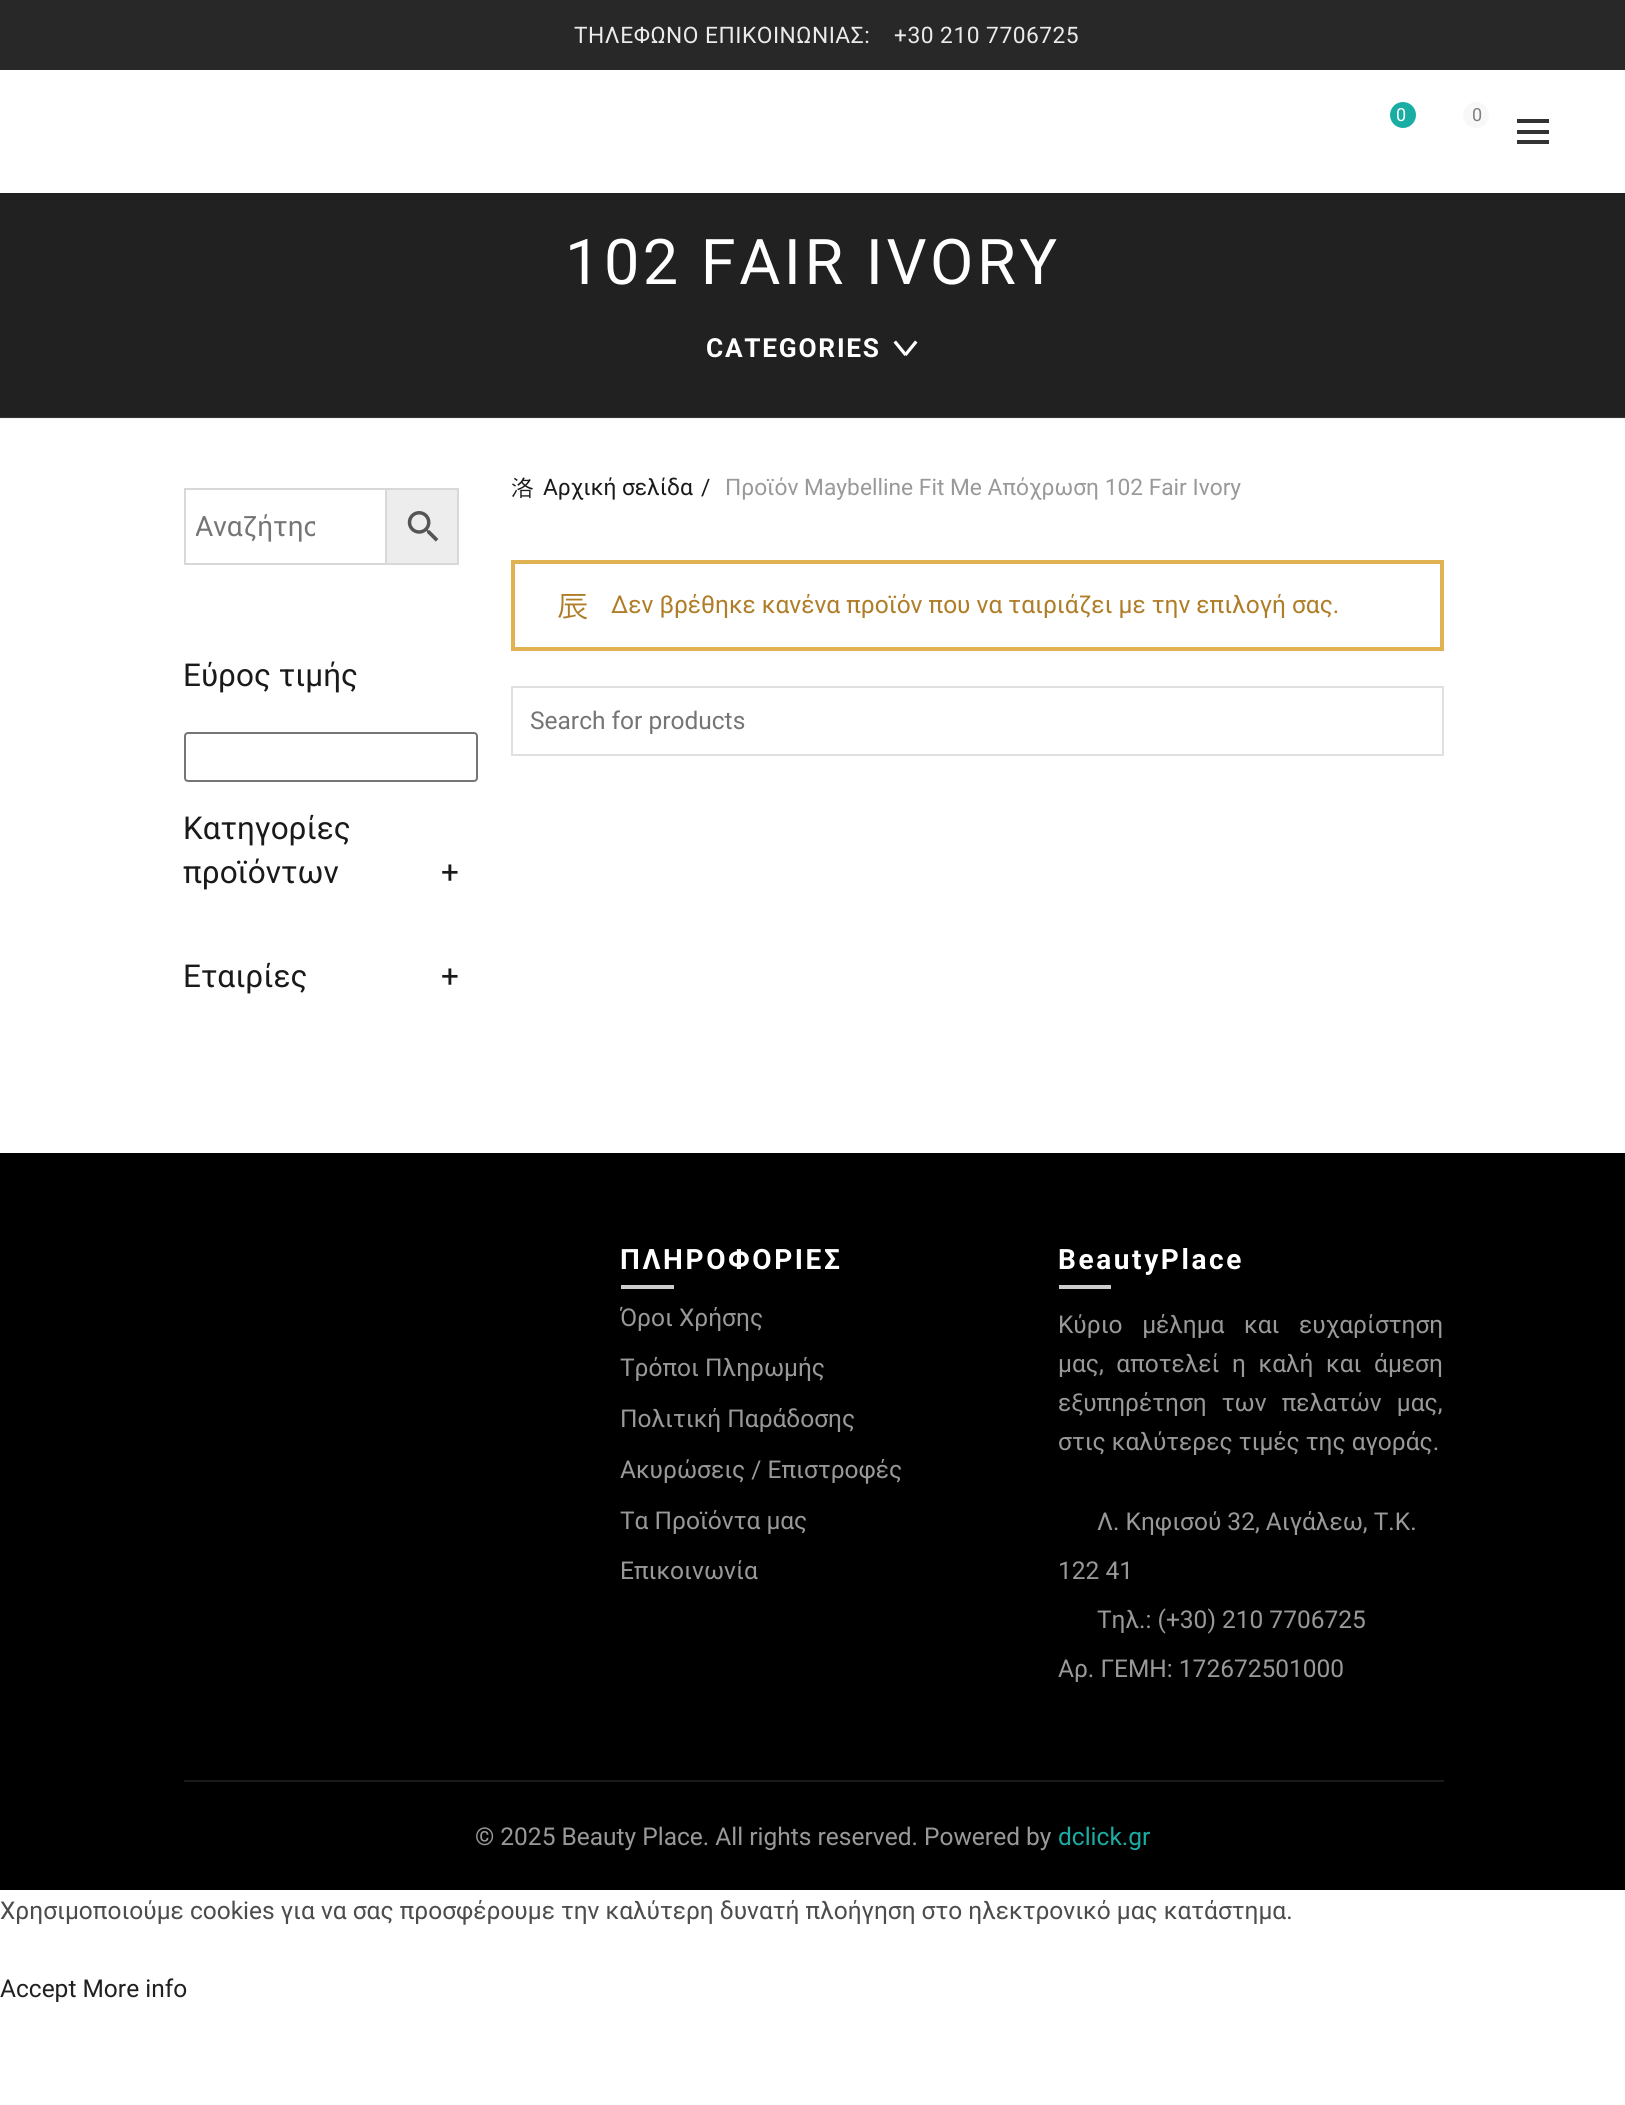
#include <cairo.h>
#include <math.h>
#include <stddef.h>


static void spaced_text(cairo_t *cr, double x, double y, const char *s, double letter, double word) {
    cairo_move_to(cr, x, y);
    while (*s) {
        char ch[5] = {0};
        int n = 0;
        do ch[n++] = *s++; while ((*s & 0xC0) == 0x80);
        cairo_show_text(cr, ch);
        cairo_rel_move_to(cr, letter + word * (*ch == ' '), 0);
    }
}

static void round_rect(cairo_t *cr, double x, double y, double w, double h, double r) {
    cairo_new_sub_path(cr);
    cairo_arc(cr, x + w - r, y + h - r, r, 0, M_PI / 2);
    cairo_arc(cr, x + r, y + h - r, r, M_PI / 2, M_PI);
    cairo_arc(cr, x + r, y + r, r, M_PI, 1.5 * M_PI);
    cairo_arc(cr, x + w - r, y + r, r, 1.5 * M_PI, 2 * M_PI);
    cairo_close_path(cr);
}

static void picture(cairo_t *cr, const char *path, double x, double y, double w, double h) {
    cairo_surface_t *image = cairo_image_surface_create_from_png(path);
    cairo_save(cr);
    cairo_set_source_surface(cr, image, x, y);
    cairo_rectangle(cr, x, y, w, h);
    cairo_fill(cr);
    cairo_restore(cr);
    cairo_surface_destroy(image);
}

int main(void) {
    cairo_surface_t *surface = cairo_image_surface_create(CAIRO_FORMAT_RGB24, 1625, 2105);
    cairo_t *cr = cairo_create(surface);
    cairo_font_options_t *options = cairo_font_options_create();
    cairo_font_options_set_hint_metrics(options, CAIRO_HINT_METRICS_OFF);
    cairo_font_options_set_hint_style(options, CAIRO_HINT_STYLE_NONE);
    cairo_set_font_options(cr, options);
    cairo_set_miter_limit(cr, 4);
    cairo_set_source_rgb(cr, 1, 1, 1);
    cairo_paint(cr);
    cairo_set_source_rgb(cr, 0.949, 0.949, 0.949);
    cairo_rectangle(cr, 0, 418, 1625, 1);
    cairo_fill(cr);
    cairo_set_source_rgb(cr, 0.157, 0.157, 0.157);
    cairo_rectangle(cr, 0, 0, 1625, 70);
    cairo_fill(cr);
    cairo_select_font_face(cr, "Roboto", CAIRO_FONT_SLANT_NORMAL, CAIRO_FONT_WEIGHT_NORMAL);
    cairo_set_font_size(cr, 22.75);
    cairo_set_source_rgb(cr, 0.918, 0.918, 0.918);
    spaced_text(cr, 574, 43, "ΤΗΛΕΦΩΝΟ ΕΠΙΚΟΙΝΩΝΙΑΣ:", 0.5, 0);
    spaced_text(cr, 894, 43, "+30 210 7706725", 0.5, 0);
    cairo_set_source_rgb(cr, 0.102, 0.678, 0.639);
    cairo_new_path(cr);
    cairo_arc(cr, 1403, 115, 13, 0, 2 * M_PI);
    cairo_fill(cr);
    cairo_set_font_size(cr, 18);
    cairo_set_source_rgb(cr, 1, 1, 1);
    cairo_move_to(cr, 1396, 121);
    cairo_show_text(cr, "0");
    cairo_set_source_rgb(cr, 0.969, 0.969, 0.969);
    cairo_new_path(cr);
    cairo_arc(cr, 1476, 115, 13, 0, 2 * M_PI);
    cairo_fill(cr);
    cairo_set_source_rgb(cr, 0.494, 0.494, 0.494);
    cairo_move_to(cr, 1472, 121);
    cairo_show_text(cr, "0");
    cairo_set_source_rgb(cr, 0.2, 0.2, 0.2);
    cairo_rectangle(cr, 1517, 130, 32, 4);
    cairo_fill(cr);
    cairo_rectangle(cr, 1517, 119, 32, 4);
    cairo_fill(cr);
    cairo_rectangle(cr, 1517, 140, 32, 4);
    cairo_fill(cr);
    cairo_set_source_rgb(cr, 0.129, 0.129, 0.129);
    cairo_rectangle(cr, 0, 193, 1625, 224);
    cairo_fill(cr);
    cairo_set_source_rgb(cr, 0.208, 0.208, 0.208);
    cairo_rectangle(cr, 0, 417, 1625, 1);
    cairo_fill(cr);
    cairo_set_font_size(cr, 63);
    cairo_set_source_rgb(cr, 1, 1, 1);
    spaced_text(cr, 565, 284, "102 FAIR IVORY", 3.5, 0);
    cairo_select_font_face(cr, "Roboto", CAIRO_FONT_SLANT_NORMAL, CAIRO_FONT_WEIGHT_BOLD);
    cairo_set_font_size(cr, 26.25);
    spaced_text(cr, 706, 357, "CATEGORIES", 1.75, 0);
    cairo_new_path(cr);
    cairo_move_to(cr, 904, 354);
    cairo_line_to(cr, 915, 340.5);
    cairo_line_to(cr, 917.5, 342.5);
    cairo_line_to(cr, 906.5, 356);
    cairo_close_path(cr);
    cairo_fill(cr);
    cairo_new_path(cr);
    cairo_move_to(cr, 896, 340.5);
    cairo_line_to(cr, 907, 354);
    cairo_line_to(cr, 904.5, 356);
    cairo_line_to(cr, 893.5, 342.5);
    cairo_close_path(cr);
    cairo_fill(cr);
    cairo_set_source_rgb(cr, 0.929, 0.929, 0.929);
    cairo_rectangle(cr, 386, 489, 72, 75);
    cairo_fill_preserve(cr);
    cairo_set_source_rgb(cr, 0.847, 0.847, 0.847);
    cairo_stroke(cr);
    cairo_rectangle(cr, 185, 489, 201, 75);
    cairo_stroke(cr);
    cairo_save(cr);
    cairo_rectangle(cr, 196, 511, 119, 33);
    cairo_clip(cr);
    cairo_select_font_face(cr, "Roboto", CAIRO_FONT_SLANT_NORMAL, CAIRO_FONT_WEIGHT_NORMAL);
    cairo_set_font_size(cr, 28);
    cairo_set_source_rgb(cr, 0.459, 0.459, 0.459);
    cairo_move_to(cr, 195, 536);
    cairo_show_text(cr, "Αναζήτησ");
    cairo_restore(cr);
    picture(cr, "img1.png", 407, 511, 32, 31);
    cairo_select_font_face(cr, "Roboto", CAIRO_FONT_SLANT_NORMAL, CAIRO_FONT_WEIGHT_NORMAL);
    cairo_set_font_size(cr, 31.5);
    cairo_set_source_rgb(cr, 0.106, 0.098, 0.098);
    cairo_move_to(cr, 183, 686);
    cairo_show_text(cr, "Εύρος τιμής");
    round_rect(cr, 185, 733, 292, 48, 3);
    cairo_set_source_rgb(cr, 0.463, 0.463, 0.463);
    cairo_stroke(cr);
    cairo_set_source_rgb(cr, 0.106, 0.098, 0.098);
    cairo_move_to(cr, 183, 839);
    cairo_show_text(cr, "Κατηγορίες");
    cairo_move_to(cr, 183, 883);
    cairo_show_text(cr, "προϊόντων");
    cairo_move_to(cr, 441, 883);
    cairo_show_text(cr, "+");
    cairo_move_to(cr, 183, 987);
    cairo_show_text(cr, "Εταιρίες");
    cairo_move_to(cr, 441, 987);
    cairo_show_text(cr, "+");
    cairo_select_font_face(cr, "WenQuanYi Zen Hei Medium", CAIRO_FONT_SLANT_NORMAL, CAIRO_FONT_WEIGHT_NORMAL);
    cairo_set_font_size(cr, 22.75);
    cairo_move_to(cr, 511, 495);
    cairo_show_text(cr, "洛");
    cairo_select_font_face(cr, "Roboto", CAIRO_FONT_SLANT_NORMAL, CAIRO_FONT_WEIGHT_NORMAL);
    cairo_move_to(cr, 543, 495);
    cairo_show_text(cr, "Αρχική σελίδα");
    cairo_move_to(cr, 701, 495);
    cairo_show_text(cr, "/");
    cairo_set_source_rgb(cr, 0.6, 0.6, 0.6);
    cairo_move_to(cr, 725, 495);
    cairo_show_text(cr, "Προϊόν Maybelline Fit Me Απόχρωση 102 Fair Ivory");
    cairo_rectangle(cr, 513, 562, 929, 87);
    cairo_set_source_rgb(cr, 0.878, 0.698, 0.322);
    cairo_set_line_width(cr, 4);
    cairo_stroke(cr);
    cairo_select_font_face(cr, "WenQuanYi Zen Hei Medium", CAIRO_FONT_SLANT_NORMAL, CAIRO_FONT_WEIGHT_NORMAL);
    cairo_set_font_size(cr, 31.5);
    cairo_set_source_rgb(cr, 0.686, 0.49, 0.153);
    cairo_move_to(cr, 557, 616);
    cairo_show_text(cr, "辰");
    cairo_select_font_face(cr, "Roboto", CAIRO_FONT_SLANT_NORMAL, CAIRO_FONT_WEIGHT_NORMAL);
    cairo_set_font_size(cr, 24.5);
    cairo_move_to(cr, 611, 613);
    cairo_show_text(cr, "Δεν βρέθηκε κανένα προϊόν που να ταιριάζει με την επιλογή σας.");
    cairo_rectangle(cr, 512, 687, 931, 68);
    cairo_set_source_rgb(cr, 0.878, 0.878, 0.878);
    cairo_set_line_width(cr, 2);
    cairo_stroke(cr);
    cairo_set_source_rgb(cr, 0.459, 0.459, 0.459);
    cairo_move_to(cr, 530, 729);
    cairo_show_text(cr, "Search for products");
    cairo_set_source_rgb(cr, 0, 0, 0);
    cairo_rectangle(cr, 0, 1153, 1625, 737);
    cairo_fill(cr);
    cairo_select_font_face(cr, "Roboto", CAIRO_FONT_SLANT_NORMAL, CAIRO_FONT_WEIGHT_BOLD);
    cairo_set_font_size(cr, 28);
    cairo_set_source_rgb(cr, 1, 1, 1);
    spaced_text(cr, 620, 1269, "ΠΛΗΡΟΦΟΡΙΕΣ", 2.6, 0);
    cairo_set_source_rgb(cr, 0.8, 0.8, 0.8);
    cairo_rectangle(cr, 621, 1285, 53, 4);
    cairo_fill(cr);
    cairo_select_font_face(cr, "Roboto", CAIRO_FONT_SLANT_NORMAL, CAIRO_FONT_WEIGHT_NORMAL);
    cairo_set_font_size(cr, 24.5);
    cairo_set_source_rgb(cr, 0.6, 0.6, 0.6);
    cairo_move_to(cr, 620, 1326);
    cairo_show_text(cr, "Όροι Χρήσης");
    cairo_move_to(cr, 620, 1376);
    cairo_show_text(cr, "Τρόποι Πληρωμής");
    cairo_move_to(cr, 620, 1427);
    cairo_show_text(cr, "Πολιτική Παράδοσης");
    cairo_move_to(cr, 620, 1478);
    cairo_show_text(cr, "Ακυρώσεις / Επιστροφές");
    cairo_move_to(cr, 620, 1529);
    cairo_show_text(cr, "Τα Προϊόντα μας");
    cairo_move_to(cr, 620, 1579);
    cairo_show_text(cr, "Επικοινωνία");
    cairo_select_font_face(cr, "Roboto", CAIRO_FONT_SLANT_NORMAL, CAIRO_FONT_WEIGHT_BOLD);
    cairo_set_font_size(cr, 28);
    cairo_set_source_rgb(cr, 1, 1, 1);
    spaced_text(cr, 1058, 1269, "BeautyPlace", 2.6, 0);
    cairo_set_source_rgb(cr, 0.8, 0.8, 0.8);
    cairo_rectangle(cr, 1059, 1285, 52, 4);
    cairo_fill(cr);
    cairo_select_font_face(cr, "Roboto", CAIRO_FONT_SLANT_NORMAL, CAIRO_FONT_WEIGHT_NORMAL);
    cairo_set_font_size(cr, 24.5);
    cairo_set_source_rgb(cr, 0.6, 0.6, 0.6);
    spaced_text(cr, 1058, 1333, "Κύριο μέλημα και ευχαρίστηση", 0, 13.5);
    spaced_text(cr, 1058, 1372, "μας, αποτελεί η καλή και άμεση", 0, 6.5);
    spaced_text(cr, 1058, 1411, "εξυπηρέτηση των πελατών μας,", 0, 9);
    cairo_move_to(cr, 1058, 1450);
    cairo_show_text(cr, "στις καλύτερες τιμές της αγοράς.");
    cairo_move_to(cr, 1097, 1530);
    cairo_show_text(cr, "Λ. Κηφισού 32, Αιγάλεω, Τ.Κ.");
    cairo_move_to(cr, 1058, 1579);
    cairo_show_text(cr, "122 41");
    cairo_move_to(cr, 1097, 1628);
    cairo_show_text(cr, "Τηλ.: (+30) 210 7706725");
    cairo_move_to(cr, 1058, 1677);
    cairo_show_text(cr, "Αρ. ΓΕΜΗ: 172672501000");
    cairo_set_source_rgb(cr, 0.102, 0.102, 0.102);
    cairo_rectangle(cr, 184, 1780, 1260, 2);
    cairo_fill(cr);
    cairo_set_source_rgb(cr, 0.6, 0.6, 0.6);
    cairo_move_to(cr, 475, 1845);
    cairo_show_text(cr, "© 2025 Beauty Place. All rights reserved. Powered by");
    cairo_set_source_rgb(cr, 0.102, 0.678, 0.639);
    cairo_move_to(cr, 1058, 1845);
    cairo_show_text(cr, "dclick.gr");
    cairo_set_source_rgb(cr, 0.298, 0.298, 0.298);
    cairo_move_to(cr, 0, 1919);
    cairo_show_text(cr, "Χρησιμοποιούμε cookies για να σας προσφέρουμε την καλύτερη δυνατή πλοήγηση στο ηλεκτρονικό μας κατάστημα.");
    cairo_set_source_rgb(cr, 0.125, 0.125, 0.125);
    cairo_move_to(cr, 0, 1997);
    cairo_show_text(cr, "Accept More info");
    cairo_surface_write_to_png(surface, "page.png");
    cairo_font_options_destroy(options);
    cairo_destroy(cr);
    cairo_surface_destroy(surface);
    return 0;
}
